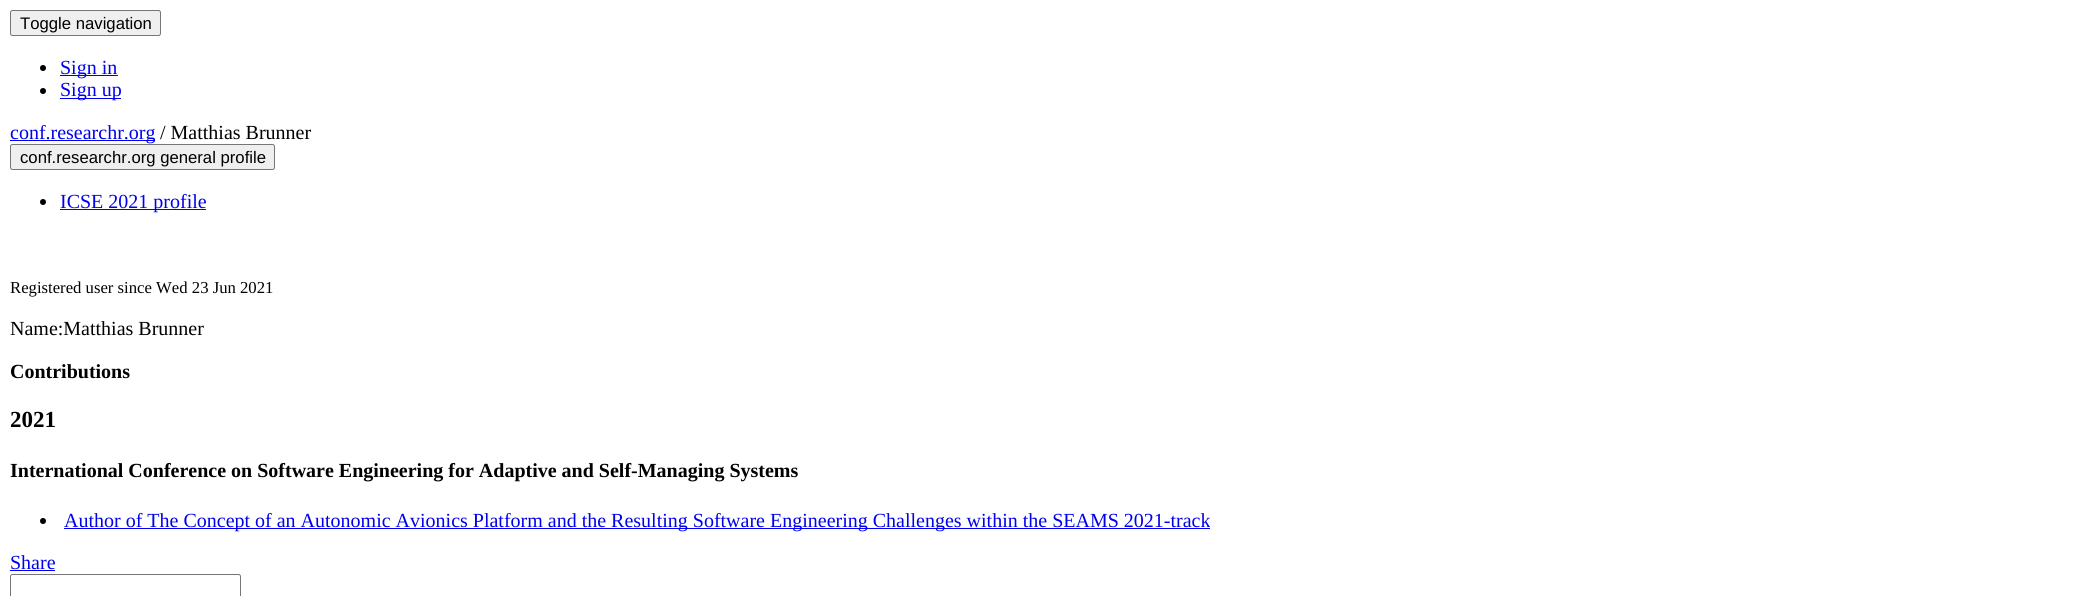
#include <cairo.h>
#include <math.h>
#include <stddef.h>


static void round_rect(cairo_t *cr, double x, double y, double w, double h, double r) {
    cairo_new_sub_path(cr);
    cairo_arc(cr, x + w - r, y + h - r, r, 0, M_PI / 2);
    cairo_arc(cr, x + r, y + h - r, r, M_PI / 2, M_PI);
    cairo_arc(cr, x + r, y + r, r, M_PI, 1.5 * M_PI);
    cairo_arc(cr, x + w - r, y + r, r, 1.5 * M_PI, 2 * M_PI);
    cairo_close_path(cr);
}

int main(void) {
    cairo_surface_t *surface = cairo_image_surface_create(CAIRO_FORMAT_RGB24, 2087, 596);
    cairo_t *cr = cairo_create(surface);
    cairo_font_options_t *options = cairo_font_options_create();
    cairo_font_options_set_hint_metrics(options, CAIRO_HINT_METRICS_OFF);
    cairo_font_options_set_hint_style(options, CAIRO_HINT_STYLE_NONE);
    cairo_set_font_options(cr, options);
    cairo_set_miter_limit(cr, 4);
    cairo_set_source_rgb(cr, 1, 1, 1);
    cairo_paint(cr);
    cairo_set_source_rgb(cr, 0.937, 0.937, 0.937);
    round_rect(cr, 10.5, 10.5, 150, 25, 2);
    cairo_fill_preserve(cr);
    cairo_set_source_rgb(cr, 0.463, 0.463, 0.463);
    cairo_set_line_width(cr, 1);
    cairo_stroke(cr);
    cairo_select_font_face(cr, "Liberation Sans", CAIRO_FONT_SLANT_NORMAL, CAIRO_FONT_WEIGHT_NORMAL);
    cairo_set_font_size(cr, 16.7);
    cairo_set_source_rgb(cr, 0, 0, 0);
    cairo_move_to(cr, 20, 29);
    cairo_show_text(cr, "Toggle navigation");
    cairo_new_path(cr);
    cairo_arc(cr, 43, 68, 3, 0, 2 * M_PI);
    cairo_fill(cr);
    cairo_set_source_rgb(cr, 0, 0, 0.933);
    cairo_rectangle(cr, 60, 75, 58, 1);
    cairo_fill(cr);
    cairo_select_font_face(cr, "Liberation Serif", CAIRO_FONT_SLANT_NORMAL, CAIRO_FONT_WEIGHT_NORMAL);
    cairo_set_font_size(cr, 20);
    cairo_move_to(cr, 60, 74);
    cairo_show_text(cr, "Sign in");
    cairo_set_source_rgb(cr, 0, 0, 0);
    cairo_new_path(cr);
    cairo_arc(cr, 43, 91, 3, 0, 2 * M_PI);
    cairo_fill(cr);
    cairo_set_source_rgb(cr, 0, 0, 0.933);
    cairo_rectangle(cr, 60, 98, 61, 1);
    cairo_fill(cr);
    cairo_move_to(cr, 60, 96);
    cairo_show_text(cr, "Sign up");
    cairo_rectangle(cr, 10, 140, 145, 1);
    cairo_fill(cr);
    cairo_move_to(cr, 10, 139);
    cairo_show_text(cr, "conf.researchr.org");
    cairo_set_source_rgb(cr, 0, 0, 0);
    cairo_move_to(cr, 160, 139);
    cairo_show_text(cr, "/ Matthias Brunner");
    cairo_set_source_rgb(cr, 0.937, 0.937, 0.937);
    round_rect(cr, 10.5, 144.5, 264, 25, 2);
    cairo_fill_preserve(cr);
    cairo_set_source_rgb(cr, 0.463, 0.463, 0.463);
    cairo_stroke(cr);
    cairo_select_font_face(cr, "Liberation Sans", CAIRO_FONT_SLANT_NORMAL, CAIRO_FONT_WEIGHT_NORMAL);
    cairo_set_font_size(cr, 16.7);
    cairo_set_source_rgb(cr, 0, 0, 0);
    cairo_move_to(cr, 20, 163);
    cairo_show_text(cr, "conf.researchr.org general profile");
    cairo_new_path(cr);
    cairo_arc(cr, 43, 202, 3, 0, 2 * M_PI);
    cairo_fill(cr);
    cairo_set_source_rgb(cr, 0, 0, 0.933);
    cairo_rectangle(cr, 60, 209, 146, 1);
    cairo_fill(cr);
    cairo_select_font_face(cr, "Liberation Serif", CAIRO_FONT_SLANT_NORMAL, CAIRO_FONT_WEIGHT_NORMAL);
    cairo_set_font_size(cr, 20);
    cairo_move_to(cr, 60, 208);
    cairo_show_text(cr, "ICSE 2021 profile");
    cairo_set_font_size(cr, 16.7);
    cairo_set_source_rgb(cr, 0, 0, 0);
    cairo_move_to(cr, 10, 293);
    cairo_show_text(cr, "Registered user since Wed 23 Jun 2021");
    cairo_set_font_size(cr, 20);
    cairo_move_to(cr, 10, 335);
    cairo_show_text(cr, "Name:Matthias Brunner");
    cairo_select_font_face(cr, "Liberation Serif", CAIRO_FONT_SLANT_NORMAL, CAIRO_FONT_WEIGHT_BOLD);
    cairo_move_to(cr, 10, 378);
    cairo_show_text(cr, "Contributions");
    cairo_set_font_size(cr, 23);
    cairo_move_to(cr, 10, 427);
    cairo_show_text(cr, "2021");
    cairo_set_font_size(cr, 20);
    cairo_move_to(cr, 10, 477);
    cairo_show_text(cr, "International Conference on Software Engineering for Adaptive and Self-Managing Systems");
    cairo_new_path(cr);
    cairo_arc(cr, 43, 521, 3, 0, 2 * M_PI);
    cairo_fill(cr);
    cairo_set_source_rgb(cr, 0, 0, 0.933);
    cairo_rectangle(cr, 64, 528, 1146, 1);
    cairo_fill(cr);
    cairo_select_font_face(cr, "Liberation Serif", CAIRO_FONT_SLANT_NORMAL, CAIRO_FONT_WEIGHT_NORMAL);
    cairo_move_to(cr, 64, 527);
    cairo_show_text(cr, "Author of The Concept of an Autonomic Avionics Platform and the Resulting Software Engineering Challenges within the SEAMS 2021-track");
    cairo_move_to(cr, 10, 569);
    cairo_show_text(cr, "Share");
    cairo_rectangle(cr, 10, 570, 45, 1);
    cairo_fill(cr);
    round_rect(cr, 10.5, 574.5, 230, 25, 2);
    cairo_set_source_rgb(cr, 0.463, 0.463, 0.463);
    cairo_stroke(cr);
    cairo_surface_write_to_png(surface, "page.png");
    cairo_font_options_destroy(options);
    cairo_destroy(cr);
    cairo_surface_destroy(surface);
    return 0;
}
